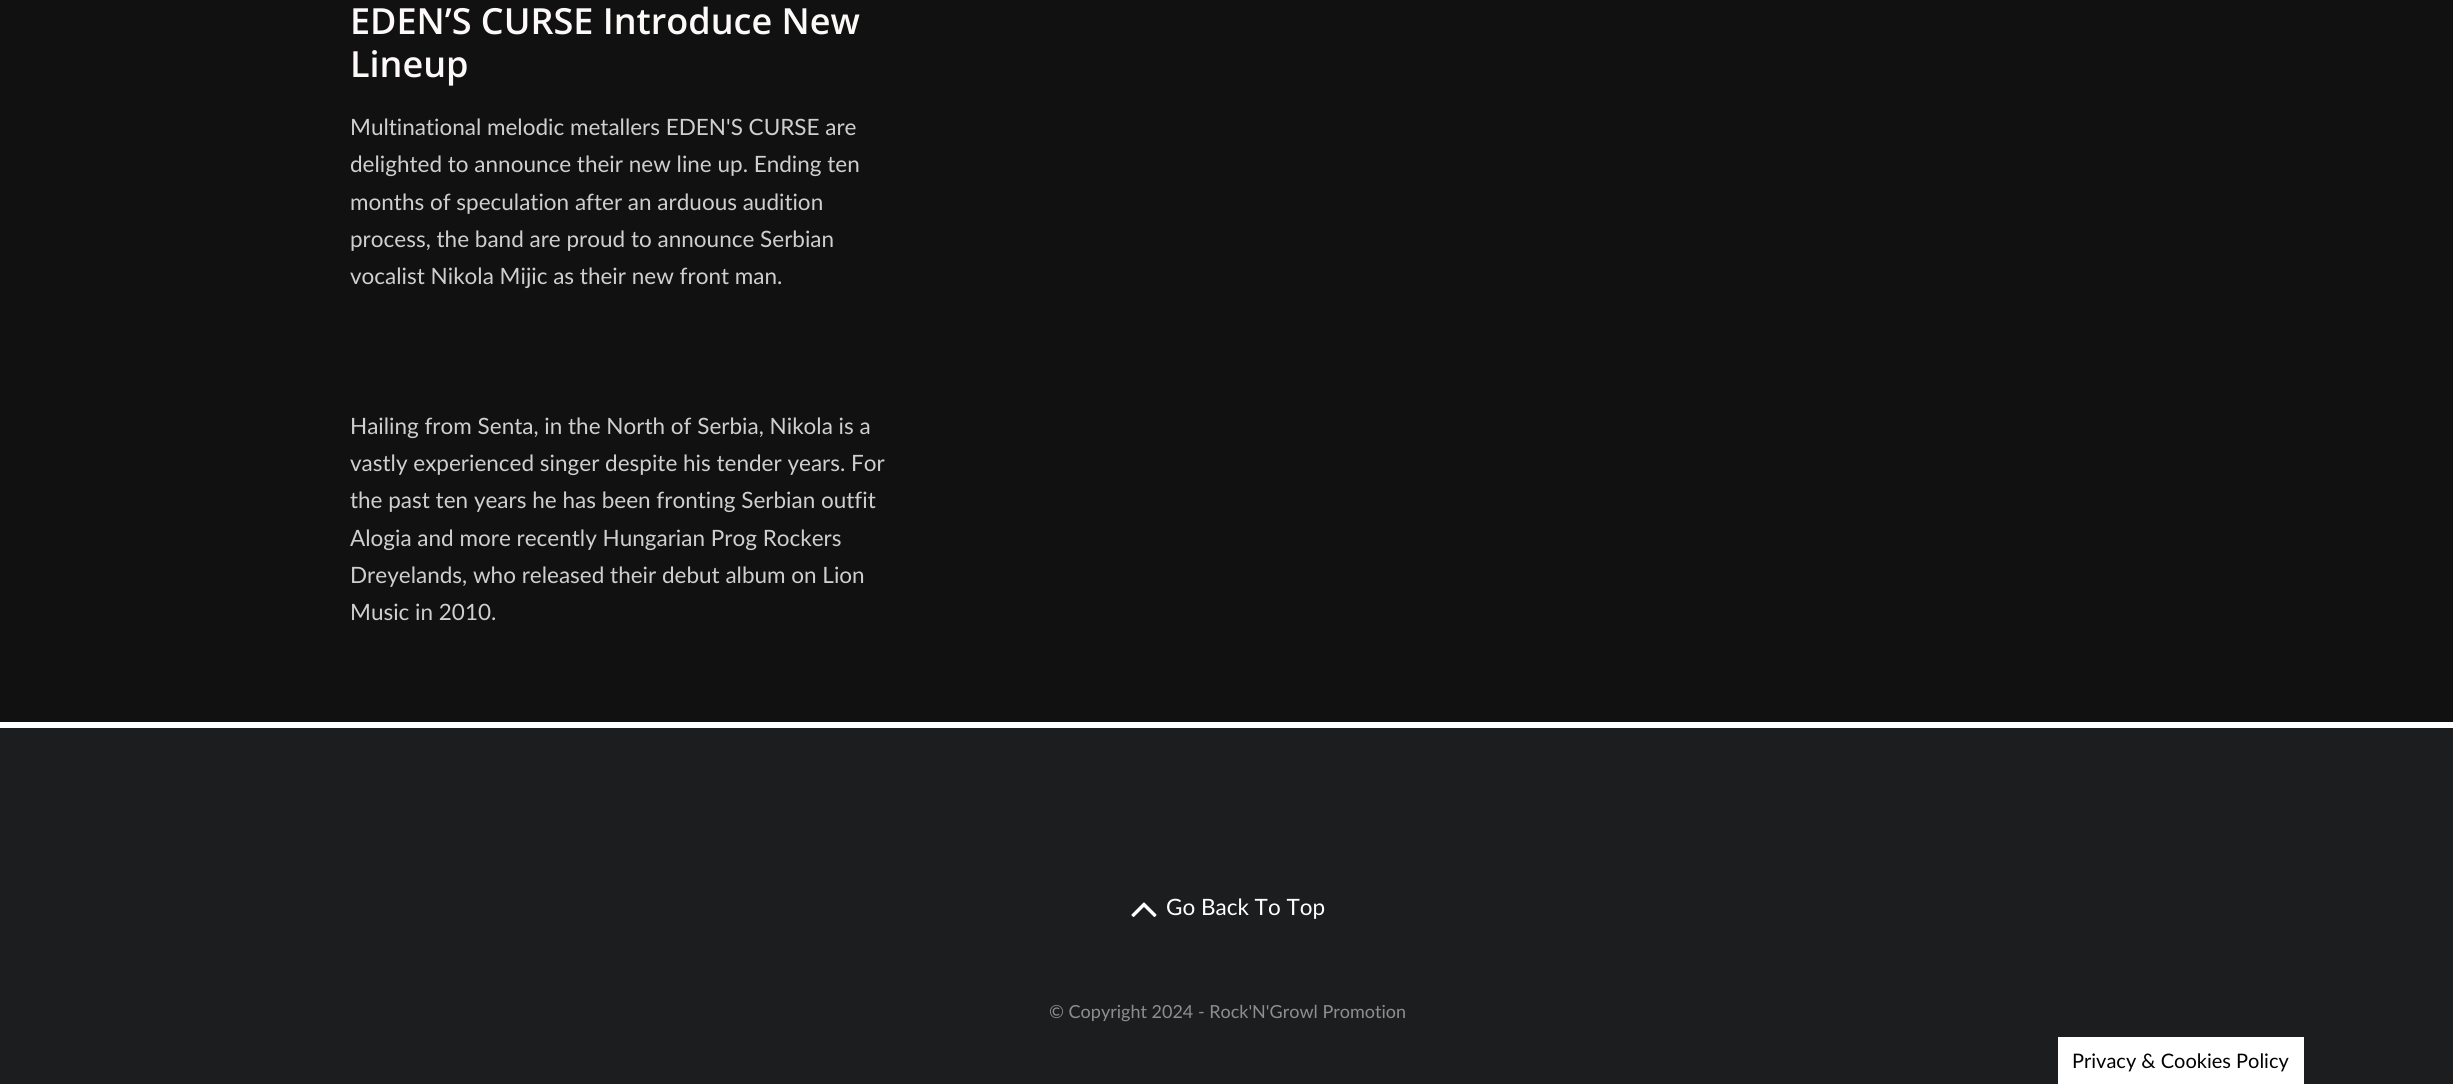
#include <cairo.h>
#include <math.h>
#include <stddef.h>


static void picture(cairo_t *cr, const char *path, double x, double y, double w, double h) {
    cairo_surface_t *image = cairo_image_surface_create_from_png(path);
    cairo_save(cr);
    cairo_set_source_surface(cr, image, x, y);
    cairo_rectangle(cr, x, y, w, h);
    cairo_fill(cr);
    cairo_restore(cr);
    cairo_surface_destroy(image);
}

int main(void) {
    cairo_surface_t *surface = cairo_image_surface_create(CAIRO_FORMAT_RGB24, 2453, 1084);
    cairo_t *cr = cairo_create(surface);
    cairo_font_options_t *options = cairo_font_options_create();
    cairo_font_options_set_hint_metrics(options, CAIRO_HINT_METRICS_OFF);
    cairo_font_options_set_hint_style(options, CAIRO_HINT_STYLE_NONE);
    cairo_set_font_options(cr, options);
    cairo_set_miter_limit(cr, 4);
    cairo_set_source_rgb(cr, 0.067, 0.067, 0.067);
    cairo_paint(cr);
    cairo_select_font_face(cr, "Open Sans SemiBold", CAIRO_FONT_SLANT_NORMAL, CAIRO_FONT_WEIGHT_NORMAL);
    cairo_set_font_size(cr, 36);
    cairo_set_source_rgb(cr, 0.992, 0.973, 0.973);
    cairo_move_to(cr, 350, 34);
    cairo_show_text(cr, "EDEN’S CURSE Introduce New");
    cairo_move_to(cr, 350, 77);
    cairo_show_text(cr, "Lineup");
    cairo_select_font_face(cr, "Lato", CAIRO_FONT_SLANT_NORMAL, CAIRO_FONT_WEIGHT_NORMAL);
    cairo_set_font_size(cr, 22.5);
    cairo_set_source_rgb(cr, 0.812, 0.812, 0.812);
    cairo_move_to(cr, 350, 135);
    cairo_show_text(cr, "Multinational melodic metallers EDEN'S CURSE are");
    cairo_move_to(cr, 350, 172);
    cairo_show_text(cr, "delighted to announce their new line up. Ending ten");
    cairo_move_to(cr, 350, 210);
    cairo_show_text(cr, "months of speculation after an arduous audition");
    cairo_move_to(cr, 350, 247);
    cairo_show_text(cr, "process, the band are proud to announce Serbian");
    cairo_move_to(cr, 350, 284);
    cairo_show_text(cr, "vocalist Nikola Mijic as their new front man.");
    cairo_move_to(cr, 350, 434);
    cairo_show_text(cr, "Hailing from Senta, in the North of Serbia, Nikola is a");
    cairo_move_to(cr, 350, 471);
    cairo_show_text(cr, "vastly experienced singer despite his tender years. For");
    cairo_move_to(cr, 350, 508);
    cairo_show_text(cr, "the past ten years he has been fronting Serbian outfit");
    cairo_move_to(cr, 350, 546);
    cairo_show_text(cr, "Alogia and more recently Hungarian Prog Rockers");
    cairo_move_to(cr, 350, 583);
    cairo_show_text(cr, "Dreyelands, who released their debut album on Lion");
    cairo_move_to(cr, 350, 620);
    cairo_show_text(cr, "Music in 2010.");
    cairo_set_source_rgb(cr, 1, 1, 1);
    cairo_rectangle(cr, 0, 722, 2453, 6);
    cairo_fill(cr);
    cairo_set_source_rgb(cr, 0.11, 0.114, 0.118);
    cairo_rectangle(cr, 0, 728, 2453, 356);
    cairo_fill(cr);
    picture(cr, "img1.png", 1131, 902, 26, 15);
    cairo_set_source_rgb(cr, 1, 1, 1);
    cairo_move_to(cr, 1166, 915);
    cairo_show_text(cr, "Go Back To Top");
    cairo_set_font_size(cr, 18);
    cairo_set_source_rgb(cr, 0.557, 0.557, 0.557);
    cairo_move_to(cr, 1049, 1018);
    cairo_show_text(cr, "© Copyright 2024 - Rock'N'Growl Promotion");
    cairo_set_source_rgb(cr, 1, 1, 1);
    cairo_rectangle(cr, 2058, 1037, 246, 47);
    cairo_fill(cr);
    cairo_set_font_size(cr, 20);
    cairo_set_source_rgb(cr, 0, 0, 0);
    cairo_move_to(cr, 2072, 1068);
    cairo_show_text(cr, "Privacy & Cookies Policy");
    cairo_surface_write_to_png(surface, "page.png");
    cairo_font_options_destroy(options);
    cairo_destroy(cr);
    cairo_surface_destroy(surface);
    return 0;
}
